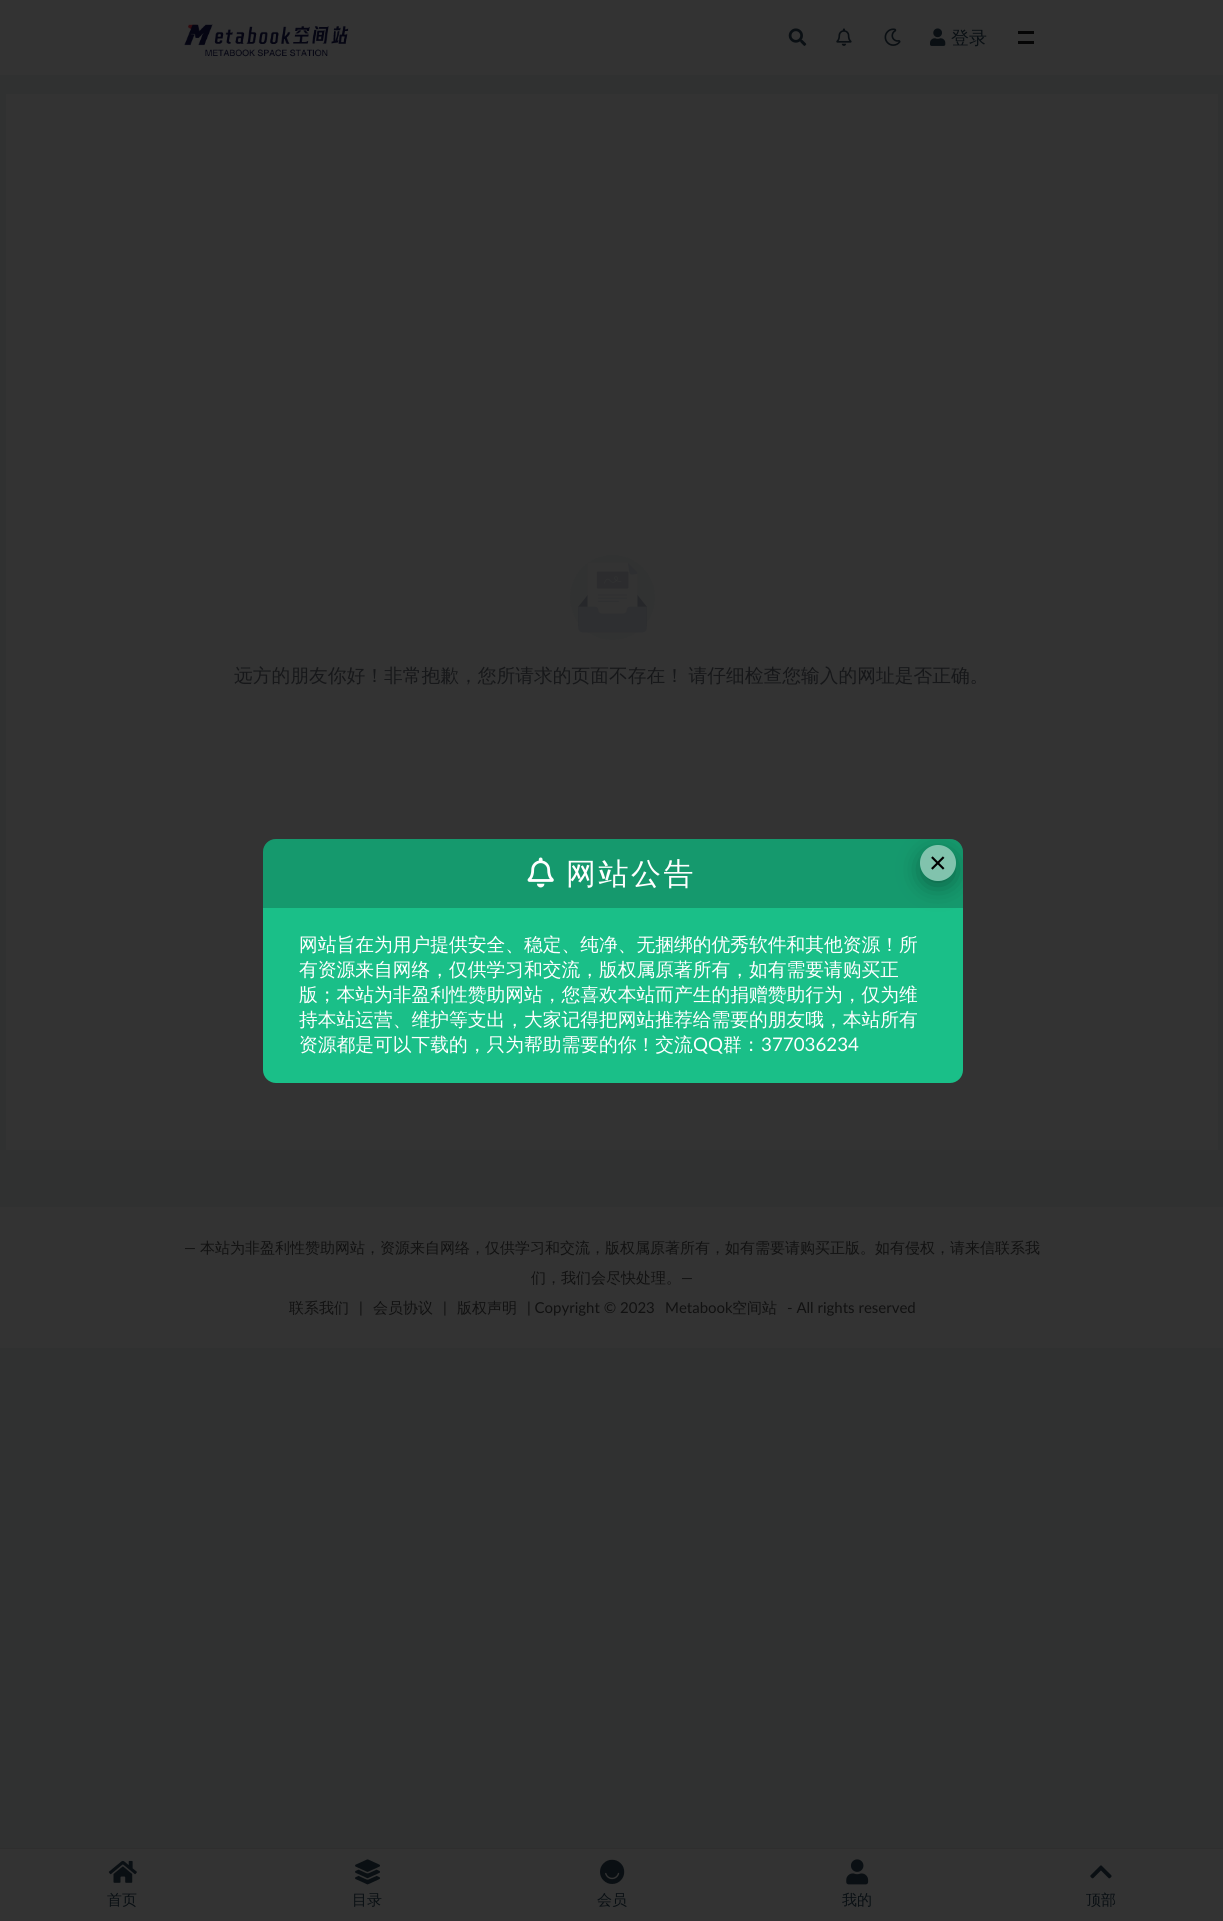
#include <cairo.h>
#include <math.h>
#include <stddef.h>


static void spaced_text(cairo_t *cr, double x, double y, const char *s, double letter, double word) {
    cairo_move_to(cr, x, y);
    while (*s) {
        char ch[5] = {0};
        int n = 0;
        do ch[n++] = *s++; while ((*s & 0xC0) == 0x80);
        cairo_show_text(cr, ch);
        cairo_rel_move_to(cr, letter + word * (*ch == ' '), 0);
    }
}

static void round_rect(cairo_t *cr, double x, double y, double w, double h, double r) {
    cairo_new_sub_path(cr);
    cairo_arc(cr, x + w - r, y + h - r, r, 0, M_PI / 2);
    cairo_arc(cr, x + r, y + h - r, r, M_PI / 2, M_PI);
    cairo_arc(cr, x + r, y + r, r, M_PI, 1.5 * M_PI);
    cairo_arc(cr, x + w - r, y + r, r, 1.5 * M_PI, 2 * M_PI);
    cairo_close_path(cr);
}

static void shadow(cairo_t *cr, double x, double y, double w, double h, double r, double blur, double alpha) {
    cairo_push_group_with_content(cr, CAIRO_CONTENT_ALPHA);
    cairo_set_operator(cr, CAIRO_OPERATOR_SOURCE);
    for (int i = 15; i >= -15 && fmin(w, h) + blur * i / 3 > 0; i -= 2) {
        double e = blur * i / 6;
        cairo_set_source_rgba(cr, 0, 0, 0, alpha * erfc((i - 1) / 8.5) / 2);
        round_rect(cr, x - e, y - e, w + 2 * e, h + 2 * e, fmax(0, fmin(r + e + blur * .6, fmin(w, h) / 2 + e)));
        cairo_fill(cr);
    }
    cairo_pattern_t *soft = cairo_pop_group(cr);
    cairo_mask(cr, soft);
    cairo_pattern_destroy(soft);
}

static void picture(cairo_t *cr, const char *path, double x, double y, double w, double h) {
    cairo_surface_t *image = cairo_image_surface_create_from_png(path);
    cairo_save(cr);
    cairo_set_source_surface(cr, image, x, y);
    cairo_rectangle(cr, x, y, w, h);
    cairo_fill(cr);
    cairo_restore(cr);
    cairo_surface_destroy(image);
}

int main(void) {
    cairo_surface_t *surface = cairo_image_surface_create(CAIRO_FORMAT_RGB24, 1223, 1921);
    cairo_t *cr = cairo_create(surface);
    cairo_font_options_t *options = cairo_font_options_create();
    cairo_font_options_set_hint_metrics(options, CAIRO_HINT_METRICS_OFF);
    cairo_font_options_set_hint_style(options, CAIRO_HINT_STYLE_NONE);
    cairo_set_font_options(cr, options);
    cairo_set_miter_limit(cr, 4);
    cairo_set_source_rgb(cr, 0.188, 0.192, 0.192);
    cairo_paint(cr);
    cairo_set_source_rgb(cr, 0.2, 0.2, 0.2);
    cairo_rectangle(cr, 0, 0, 1223, 75);
    cairo_fill(cr);
    picture(cr, "img1.png", 184, 24, 165, 33);
    picture(cr, "img2.png", 788, 28, 19, 18);
    picture(cr, "img3.png", 836, 28, 16, 18);
    picture(cr, "img4.png", 884, 28, 17, 18);
    picture(cr, "img5.png", 930, 28, 16, 18);
    cairo_select_font_face(cr, "WenQuanYi Zen Hei Medium", CAIRO_FONT_SLANT_NORMAL, CAIRO_FONT_WEIGHT_NORMAL);
    cairo_set_font_size(cr, 18);
    cairo_set_source_rgb(cr, 0.039, 0.059, 0.075);
    cairo_move_to(cr, 951, 44);
    cairo_show_text(cr, "登录");
    cairo_set_source_rgb(cr, 0.02, 0.02, 0.02);
    cairo_rectangle(cr, 1018, 31, 16, 3);
    cairo_fill(cr);
    cairo_rectangle(cr, 1018, 41, 16, 3);
    cairo_fill(cr);
    cairo_set_source_rgb(cr, 0.2, 0.2, 0.2);
    cairo_rectangle(cr, 6, 94, 1212, 1056);
    cairo_fill(cr);
    picture(cr, "img6.png", 570, 555, 85, 85);
    cairo_set_font_size(cr, 18.75);
    cairo_set_source_rgb(cr, 0.086, 0.09, 0.098);
    spaced_text(cr, 234, 682, "远方的朋友你好！非常抱歉，您所请求的页面不存在！ 请仔细检查您输入的网址是否正确。", 0, -1);
    cairo_set_source_rgb(cr, 0.2, 0.2, 0.2);
    cairo_rectangle(cr, 0, 1207, 1223, 141);
    cairo_fill(cr);
    cairo_select_font_face(cr, "Lato", CAIRO_FONT_SLANT_NORMAL, CAIRO_FONT_WEIGHT_NORMAL);
    cairo_set_font_size(cr, 15);
    cairo_set_source_rgb(cr, 0.067, 0.067, 0.067);
    cairo_move_to(cr, 184, 1253);
    cairo_show_text(cr, "—");
    cairo_select_font_face(cr, "WenQuanYi Zen Hei Medium", CAIRO_FONT_SLANT_NORMAL, CAIRO_FONT_WEIGHT_NORMAL);
    cairo_move_to(cr, 200, 1253);
    cairo_show_text(cr, "本站为非盈利性赞助网站，资源来自网络，仅供学习和交流，版权属原著所有，如有需要请购买正版。如有侵权，请来信联系我");
    cairo_move_to(cr, 531, 1283);
    cairo_show_text(cr, "们，我们会尽快处理。");
    cairo_select_font_face(cr, "Lato", CAIRO_FONT_SLANT_NORMAL, CAIRO_FONT_WEIGHT_NORMAL);
    cairo_move_to(cr, 681, 1283);
    cairo_show_text(cr, "—");
    cairo_select_font_face(cr, "WenQuanYi Zen Hei Medium", CAIRO_FONT_SLANT_NORMAL, CAIRO_FONT_WEIGHT_NORMAL);
    cairo_move_to(cr, 289, 1313);
    cairo_show_text(cr, "联系我们");
    cairo_select_font_face(cr, "Lato", CAIRO_FONT_SLANT_NORMAL, CAIRO_FONT_WEIGHT_NORMAL);
    cairo_move_to(cr, 359, 1313);
    cairo_show_text(cr, "|");
    cairo_select_font_face(cr, "WenQuanYi Zen Hei Medium", CAIRO_FONT_SLANT_NORMAL, CAIRO_FONT_WEIGHT_NORMAL);
    cairo_move_to(cr, 373, 1313);
    cairo_show_text(cr, "会员协议");
    cairo_select_font_face(cr, "Lato", CAIRO_FONT_SLANT_NORMAL, CAIRO_FONT_WEIGHT_NORMAL);
    cairo_move_to(cr, 443, 1313);
    cairo_show_text(cr, "|");
    cairo_select_font_face(cr, "WenQuanYi Zen Hei Medium", CAIRO_FONT_SLANT_NORMAL, CAIRO_FONT_WEIGHT_NORMAL);
    cairo_move_to(cr, 457, 1313);
    cairo_show_text(cr, "版权声明");
    cairo_select_font_face(cr, "Lato", CAIRO_FONT_SLANT_NORMAL, CAIRO_FONT_WEIGHT_NORMAL);
    cairo_move_to(cr, 527, 1313);
    cairo_show_text(cr, "| Copyright © 2023");
    cairo_move_to(cr, 665, 1313);
    cairo_show_text(cr, "Metabook");
    cairo_select_font_face(cr, "WenQuanYi Zen Hei Medium", CAIRO_FONT_SLANT_NORMAL, CAIRO_FONT_WEIGHT_NORMAL);
    cairo_move_to(cr, 732, 1313);
    cairo_show_text(cr, "空间站");
    cairo_select_font_face(cr, "Lato", CAIRO_FONT_SLANT_NORMAL, CAIRO_FONT_WEIGHT_NORMAL);
    cairo_move_to(cr, 787, 1313);
    cairo_show_text(cr, "- All rights reserved");
    cairo_set_source_rgb(cr, 0.102, 0.749, 0.533);
    round_rect(cr, 263, 839, 700, 244, 13);
    cairo_fill(cr);
    cairo_set_source_rgba(cr, 0, 0, 0, 0.2);
    cairo_new_path(cr);
    cairo_move_to(cr, 276, 839);
    cairo_line_to(cr, 950, 839);
    cairo_curve_to(cr, 957, 839, 963, 845, 963, 852);
    cairo_line_to(cr, 963, 908);
    cairo_line_to(cr, 263, 908);
    cairo_line_to(cr, 263, 852);
    cairo_curve_to(cr, 263, 845, 269, 839, 276, 839);
    cairo_close_path(cr);
    cairo_fill(cr);
    picture(cr, "img7.png", 527, 857, 27, 31);
    cairo_select_font_face(cr, "WenQuanYi Zen Hei Medium", CAIRO_FONT_SLANT_NORMAL, CAIRO_FONT_WEIGHT_NORMAL);
    cairo_set_font_size(cr, 30);
    cairo_set_source_rgb(cr, 1, 1, 1);
    spaced_text(cr, 566, 884, "网站公告", 2.5, 0);
    cairo_set_font_size(cr, 18.75);
    cairo_move_to(cr, 299, 951);
    cairo_show_text(cr, "网站旨在为用户提供安全、稳定、纯净、无捆绑的优秀软件和其他资源！所");
    cairo_move_to(cr, 299, 976);
    cairo_show_text(cr, "有资源来自网络，仅供学习和交流，版权属原著所有，如有需要请购买正");
    cairo_move_to(cr, 299, 1001);
    cairo_show_text(cr, "版；本站为非盈利性赞助网站，您喜欢本站而产生的捐赠赞助行为，仅为维");
    cairo_move_to(cr, 299, 1026);
    cairo_show_text(cr, "持本站运营、维护等支出，大家记得把网站推荐给需要的朋友哦，本站所有");
    cairo_move_to(cr, 299, 1051);
    cairo_show_text(cr, "资源都是可以下载的，只为帮助需要的你！交流");
    cairo_select_font_face(cr, "Lato", CAIRO_FONT_SLANT_NORMAL, CAIRO_FONT_WEIGHT_NORMAL);
    cairo_move_to(cr, 693, 1051);
    cairo_show_text(cr, "QQ");
    cairo_select_font_face(cr, "WenQuanYi Zen Hei Medium", CAIRO_FONT_SLANT_NORMAL, CAIRO_FONT_WEIGHT_NORMAL);
    cairo_move_to(cr, 723, 1051);
    cairo_show_text(cr, "群：");
    cairo_select_font_face(cr, "Lato", CAIRO_FONT_SLANT_NORMAL, CAIRO_FONT_WEIGHT_NORMAL);
    cairo_move_to(cr, 761, 1051);
    cairo_show_text(cr, "377036234");
    cairo_save(cr);
    round_rect(cr, 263, 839, 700, 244, 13);
    cairo_clip(cr);
    cairo_set_fill_rule(cr, CAIRO_FILL_RULE_EVEN_ODD);
    cairo_new_path(cr);
    cairo_move_to(cr, 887, 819);
    cairo_line_to(cr, 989, 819);
    cairo_line_to(cr, 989, 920);
    cairo_line_to(cr, 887, 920);
    cairo_close_path(cr);
    cairo_move_to(cr, 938, 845);
    cairo_curve_to(cr, 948, 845, 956, 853, 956, 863);
    cairo_curve_to(cr, 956, 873, 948, 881, 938, 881);
    cairo_curve_to(cr, 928, 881, 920, 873, 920, 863);
    cairo_curve_to(cr, 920, 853, 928, 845, 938, 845);
    cairo_close_path(cr);
    cairo_clip(cr);
    cairo_set_source_rgb(cr, 0, 0, 0);
    shadow(cr, 926, 858, 24, 23, 11.5, 12.5, 0.5);
    cairo_restore(cr);
    cairo_set_source_rgba(cr, 0.937, 0.937, 0.937, 0.5);
    cairo_arc(cr, 938, 863, 18, 0, 2 * M_PI);
    cairo_fill(cr);
    cairo_select_font_face(cr, "Liberation Sans", CAIRO_FONT_SLANT_NORMAL, CAIRO_FONT_WEIGHT_NORMAL);
    cairo_set_font_size(cr, 30);
    cairo_set_source_rgb(cr, 0, 0, 0);
    cairo_move_to(cr, 929, 873);
    cairo_show_text(cr, "×");
    cairo_set_source_rgb(cr, 0.2, 0.2, 0.2);
    cairo_rectangle(cr, 0, 1848, 1223, 73);
    cairo_fill(cr);
    cairo_set_source_rgb(cr, 0.18, 0.18, 0.18);
    round_rect(cr, 0, 1848, 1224, 1, 0.5);
    cairo_fill(cr);
    picture(cr, "img8.png", 108, 1860, 29, 23);
    cairo_select_font_face(cr, "WenQuanYi Zen Hei Medium", CAIRO_FONT_SLANT_NORMAL, CAIRO_FONT_WEIGHT_NORMAL);
    cairo_set_font_size(cr, 15);
    cairo_set_source_rgb(cr, 0.039, 0.059, 0.075);
    cairo_move_to(cr, 107, 1905);
    cairo_show_text(cr, "首页");
    picture(cr, "img9.png", 355, 1859, 25, 26);
    cairo_move_to(cr, 352, 1905);
    cairo_show_text(cr, "目录");
    picture(cr, "img10.png", 600, 1859, 25, 25);
    cairo_move_to(cr, 597, 1905);
    cairo_show_text(cr, "会员");
    picture(cr, "img11.png", 846, 1859, 23, 26);
    cairo_move_to(cr, 842, 1905);
    cairo_show_text(cr, "我的");
    picture(cr, "img12.png", 1090, 1865, 22, 14);
    cairo_move_to(cr, 1086, 1905);
    cairo_show_text(cr, "顶部");
    cairo_surface_write_to_png(surface, "page.png");
    cairo_font_options_destroy(options);
    cairo_destroy(cr);
    cairo_surface_destroy(surface);
    return 0;
}
